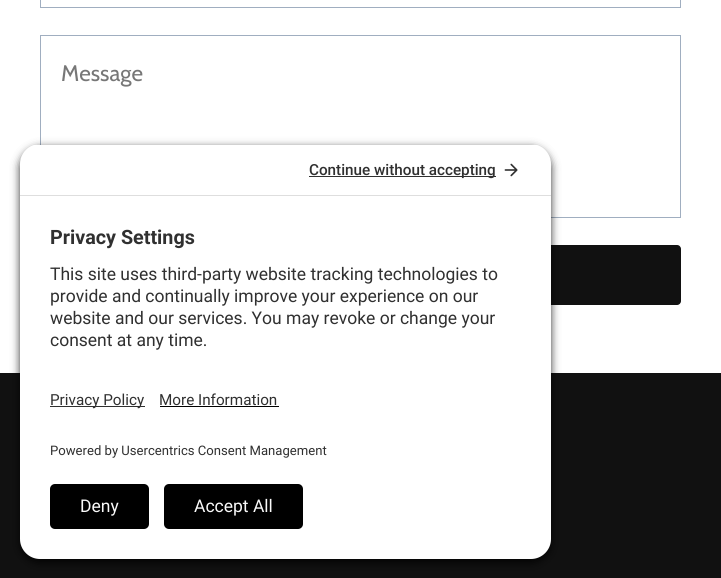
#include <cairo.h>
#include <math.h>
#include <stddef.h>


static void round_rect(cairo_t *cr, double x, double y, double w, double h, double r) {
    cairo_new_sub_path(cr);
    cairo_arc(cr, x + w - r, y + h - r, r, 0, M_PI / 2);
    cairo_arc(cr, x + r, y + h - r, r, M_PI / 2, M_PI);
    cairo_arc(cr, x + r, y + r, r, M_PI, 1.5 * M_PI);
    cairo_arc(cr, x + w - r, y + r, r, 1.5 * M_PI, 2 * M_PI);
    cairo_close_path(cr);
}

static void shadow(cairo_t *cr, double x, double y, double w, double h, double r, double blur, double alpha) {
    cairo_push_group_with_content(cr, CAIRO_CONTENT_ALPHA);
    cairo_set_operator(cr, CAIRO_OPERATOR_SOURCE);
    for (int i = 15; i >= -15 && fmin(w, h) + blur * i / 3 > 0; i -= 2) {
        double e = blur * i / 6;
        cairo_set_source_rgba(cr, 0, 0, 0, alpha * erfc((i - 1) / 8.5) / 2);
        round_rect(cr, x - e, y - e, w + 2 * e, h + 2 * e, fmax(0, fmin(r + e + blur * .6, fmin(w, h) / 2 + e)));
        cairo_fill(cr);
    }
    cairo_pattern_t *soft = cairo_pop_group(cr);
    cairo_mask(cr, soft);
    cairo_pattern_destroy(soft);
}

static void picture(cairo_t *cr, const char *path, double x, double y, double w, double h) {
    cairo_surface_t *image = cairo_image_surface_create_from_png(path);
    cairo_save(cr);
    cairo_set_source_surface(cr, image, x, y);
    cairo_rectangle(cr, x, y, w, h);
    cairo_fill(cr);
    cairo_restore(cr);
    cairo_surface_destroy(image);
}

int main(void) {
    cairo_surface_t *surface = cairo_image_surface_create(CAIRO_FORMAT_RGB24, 721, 578);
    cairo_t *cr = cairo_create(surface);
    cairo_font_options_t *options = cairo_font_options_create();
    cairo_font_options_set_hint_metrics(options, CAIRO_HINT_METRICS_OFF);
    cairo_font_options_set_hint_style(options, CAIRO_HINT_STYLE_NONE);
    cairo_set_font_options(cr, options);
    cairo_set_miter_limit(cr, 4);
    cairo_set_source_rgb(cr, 0.067, 0.067, 0.067);
    cairo_paint(cr);
    cairo_set_source_rgb(cr, 1, 1, 1);
    cairo_rectangle(cr, 0, 0, 721, 373);
    cairo_fill(cr);
    cairo_rectangle(cr, 40.5, -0.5, 640, 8);
    cairo_set_source_rgb(cr, 0.627, 0.682, 0.753);
    cairo_set_line_width(cr, 1);
    cairo_stroke(cr);
    cairo_rectangle(cr, 40.5, 35.5, 640, 182);
    cairo_stroke(cr);
    cairo_select_font_face(cr, "Cabin", CAIRO_FONT_SLANT_NORMAL, CAIRO_FONT_WEIGHT_NORMAL);
    cairo_set_font_size(cr, 22.5);
    cairo_set_source_rgb(cr, 0.467, 0.467, 0.467);
    cairo_move_to(cr, 61, 81);
    cairo_show_text(cr, "Message");
    cairo_set_source_rgb(cr, 0.067, 0.067, 0.067);
    round_rect(cr, 40, 245, 641, 60, 4);
    cairo_fill(cr);
    cairo_set_source_rgb(cr, 0, 0, 0);
    shadow(cr, 20, 148, 531, 415, 20, 4.5, 0.8);
    cairo_save(cr);
    cairo_new_path(cr);
    cairo_move_to(cr, 40, 144);
    cairo_line_to(cr, 531, 144);
    cairo_curve_to(cr, 542, 144, 551, 153, 551, 164);
    cairo_line_to(cr, 551, 356);
    cairo_line_to(cr, 20, 356);
    cairo_line_to(cr, 20, 164);
    cairo_curve_to(cr, 20, 153, 29, 144, 40, 144);
    cairo_close_path(cr);
    cairo_clip(cr);
    cairo_set_source_rgb(cr, 1, 1, 1);
    cairo_rectangle(cr, 20, 145, 531, 50);
    cairo_fill(cr);
    cairo_restore(cr);
    cairo_set_source_rgb(cr, 0.871, 0.871, 0.871);
    cairo_rectangle(cr, 20, 195, 531, 1);
    cairo_fill(cr);
    cairo_set_source_rgb(cr, 0.188, 0.188, 0.188);
    cairo_rectangle(cr, 309, 176, 187, 1);
    cairo_fill(cr);
    cairo_select_font_face(cr, "Roboto Medium", CAIRO_FONT_SLANT_NORMAL, CAIRO_FONT_WEIGHT_NORMAL);
    cairo_set_font_size(cr, 15.25);
    cairo_move_to(cr, 309, 175);
    cairo_show_text(cr, "Continue without accepting");
    picture(cr, "img1.png", 504, 163, 14, 14);
    cairo_set_source_rgb(cr, 1, 1, 1);
    cairo_rectangle(cr, 20, 196, 531, 160);
    cairo_fill(cr);
    cairo_select_font_face(cr, "Roboto", CAIRO_FONT_SLANT_NORMAL, CAIRO_FONT_WEIGHT_BOLD);
    cairo_set_font_size(cr, 19.75);
    cairo_set_source_rgb(cr, 0.188, 0.188, 0.188);
    cairo_move_to(cr, 50, 244);
    cairo_show_text(cr, "Privacy Settings");
    cairo_select_font_face(cr, "Roboto", CAIRO_FONT_SLANT_NORMAL, CAIRO_FONT_WEIGHT_NORMAL);
    cairo_set_font_size(cr, 17.5);
    cairo_move_to(cr, 50, 280);
    cairo_show_text(cr, "This site uses third-party website tracking technologies to");
    cairo_move_to(cr, 50, 302);
    cairo_show_text(cr, "provide and continually improve your experience on our");
    cairo_move_to(cr, 50, 324);
    cairo_show_text(cr, "website and our services. You may revoke or change your");
    cairo_move_to(cr, 50, 346);
    cairo_show_text(cr, "consent at any time.");
    cairo_set_source_rgb(cr, 1, 1, 1);
    cairo_new_path(cr);
    cairo_move_to(cr, 20, 356);
    cairo_line_to(cr, 551, 356);
    cairo_line_to(cr, 551, 539);
    cairo_curve_to(cr, 551, 550, 542, 559, 531, 559);
    cairo_line_to(cr, 40, 559);
    cairo_curve_to(cr, 29, 559, 20, 550, 20, 539);
    cairo_close_path(cr);
    cairo_fill(cr);
    cairo_set_source_rgb(cr, 0.188, 0.188, 0.188);
    cairo_rectangle(cr, 50, 406, 95, 1);
    cairo_fill(cr);
    cairo_set_font_size(cr, 15.25);
    cairo_move_to(cr, 50, 405);
    cairo_show_text(cr, "Privacy Policy");
    cairo_move_to(cr, 159, 405);
    cairo_show_text(cr, "More Information");
    cairo_set_source_rgb(cr, 0, 0, 0);
    cairo_rectangle(cr, 160, 406, 119, 1);
    cairo_fill(cr);
    cairo_set_font_size(cr, 13.1);
    cairo_set_source_rgb(cr, 0.188, 0.188, 0.188);
    cairo_move_to(cr, 50, 455);
    cairo_show_text(cr, "Powered by Usercentrics Consent Management");
    cairo_set_source_rgb(cr, 0, 0, 0);
    round_rect(cr, 50, 484, 99, 45, 5);
    cairo_fill(cr);
    cairo_set_font_size(cr, 17.5);
    cairo_set_source_rgb(cr, 0.98, 0.98, 0.98);
    cairo_move_to(cr, 80, 512);
    cairo_show_text(cr, "Deny");
    cairo_set_source_rgb(cr, 0, 0, 0);
    round_rect(cr, 164, 484, 139, 45, 5);
    cairo_fill(cr);
    cairo_set_source_rgb(cr, 0.98, 0.98, 0.98);
    cairo_move_to(cr, 194, 512);
    cairo_show_text(cr, "Accept All");
    cairo_surface_write_to_png(surface, "page.png");
    cairo_font_options_destroy(options);
    cairo_destroy(cr);
    cairo_surface_destroy(surface);
    return 0;
}
